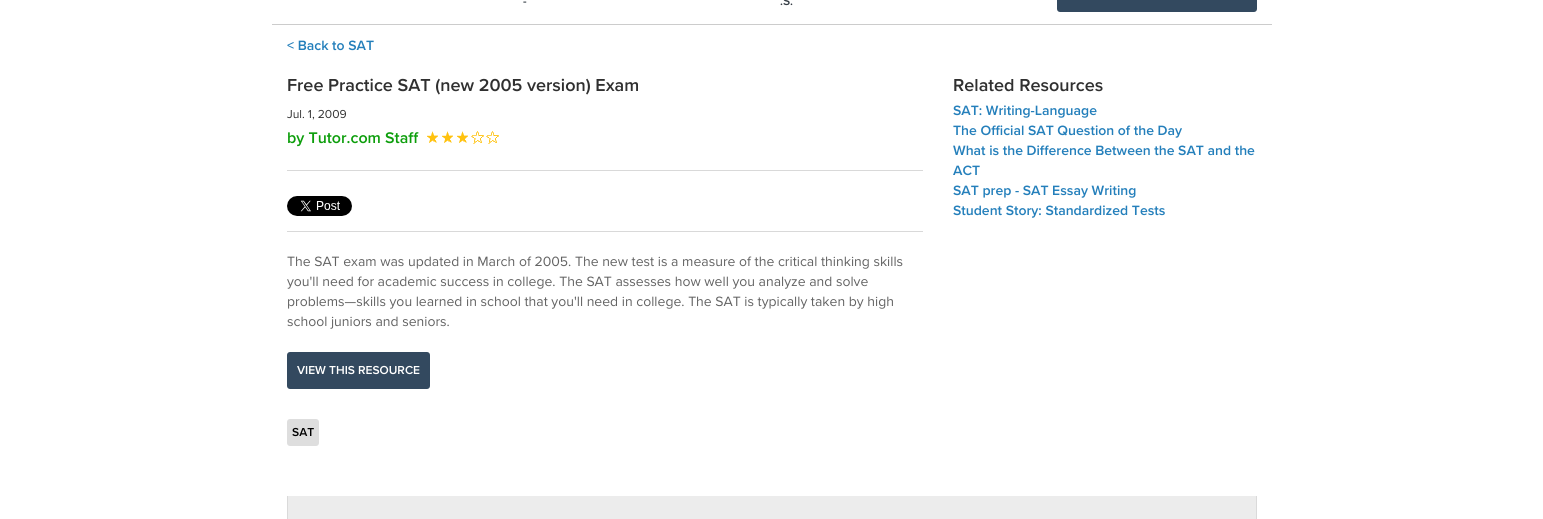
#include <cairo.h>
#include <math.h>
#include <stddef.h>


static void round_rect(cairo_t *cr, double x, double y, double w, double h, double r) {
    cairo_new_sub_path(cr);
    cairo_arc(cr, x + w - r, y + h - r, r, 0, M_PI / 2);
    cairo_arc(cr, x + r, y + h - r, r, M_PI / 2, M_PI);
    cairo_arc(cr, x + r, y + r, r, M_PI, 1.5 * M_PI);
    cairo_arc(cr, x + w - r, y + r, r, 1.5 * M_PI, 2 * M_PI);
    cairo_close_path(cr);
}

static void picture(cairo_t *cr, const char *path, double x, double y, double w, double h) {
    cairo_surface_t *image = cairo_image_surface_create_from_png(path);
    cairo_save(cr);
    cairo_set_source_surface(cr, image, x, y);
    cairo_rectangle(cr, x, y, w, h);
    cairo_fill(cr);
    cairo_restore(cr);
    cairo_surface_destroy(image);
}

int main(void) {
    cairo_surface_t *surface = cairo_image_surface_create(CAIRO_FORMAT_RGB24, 1543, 519);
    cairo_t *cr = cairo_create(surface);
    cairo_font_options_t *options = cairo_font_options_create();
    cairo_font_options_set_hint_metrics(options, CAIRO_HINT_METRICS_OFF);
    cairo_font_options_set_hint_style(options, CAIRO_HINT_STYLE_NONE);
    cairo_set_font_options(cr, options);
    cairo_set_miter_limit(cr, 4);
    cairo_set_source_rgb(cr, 1, 1, 1);
    cairo_paint(cr);
    cairo_set_source_rgb(cr, 0.8, 0.8, 0.8);
    cairo_rectangle(cr, 272, 24, 1000, 1);
    cairo_fill(cr);
    cairo_select_font_face(cr, "Proxima Nova SemiBold", CAIRO_FONT_SLANT_NORMAL, CAIRO_FONT_WEIGHT_NORMAL);
    cairo_set_font_size(cr, 12);
    cairo_set_source_rgb(cr, 0.216, 0.247, 0.278);
    cairo_move_to(cr, 523, 5);
    cairo_show_text(cr, "-");
    cairo_move_to(cr, 780, 5);
    cairo_show_text(cr, ".S.");
    cairo_set_source_rgb(cr, 0.2, 0.286, 0.373);
    round_rect(cr, 1057, -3, 200, 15, 3);
    cairo_fill(cr);
    cairo_set_font_size(cr, 14);
    cairo_set_source_rgb(cr, 0.141, 0.498, 0.733);
    cairo_move_to(cr, 287, 50);
    cairo_show_text(cr, "< Back to SAT");
    cairo_set_font_size(cr, 18);
    cairo_set_source_rgb(cr, 0.188, 0.188, 0.188);
    cairo_move_to(cr, 287, 91);
    cairo_show_text(cr, "Free Practice SAT (new 2005 version) Exam");
    cairo_select_font_face(cr, "Proxima Nova", CAIRO_FONT_SLANT_NORMAL, CAIRO_FONT_WEIGHT_NORMAL);
    cairo_set_font_size(cr, 12);
    cairo_move_to(cr, 287, 118);
    cairo_show_text(cr, "Jul. 1, 2009");
    cairo_select_font_face(cr, "Proxima Nova SemiBold", CAIRO_FONT_SLANT_NORMAL, CAIRO_FONT_WEIGHT_NORMAL);
    cairo_set_font_size(cr, 16);
    cairo_set_source_rgb(cr, 0.051, 0.62, 0.047);
    cairo_move_to(cr, 287, 143);
    cairo_show_text(cr, "by Tutor.com Staff");
    picture(cr, "img1.png", 427, 131, 11, 12);
    picture(cr, "img1.png", 442, 131, 11, 12);
    picture(cr, "img1.png", 457, 131, 11, 12);
    picture(cr, "img2.png", 471, 131, 13, 13);
    picture(cr, "img2.png", 486, 131, 13, 13);
    cairo_set_source_rgb(cr, 0.851, 0.851, 0.851);
    cairo_rectangle(cr, 287, 170, 636, 1);
    cairo_fill(cr);
    picture(cr, "img3.png", 287, 196, 65, 20);
    cairo_rectangle(cr, 287, 231, 636, 1);
    cairo_fill(cr);
    cairo_select_font_face(cr, "Proxima Nova", CAIRO_FONT_SLANT_NORMAL, CAIRO_FONT_WEIGHT_NORMAL);
    cairo_set_font_size(cr, 14);
    cairo_set_source_rgb(cr, 0.388, 0.388, 0.388);
    cairo_move_to(cr, 287, 266);
    cairo_show_text(cr, "The SAT exam was updated in March of 2005. The new test is a measure of the critical thinking skills");
    cairo_move_to(cr, 287, 286);
    cairo_show_text(cr, "you'll need for academic success in college. The SAT assesses how well you analyze and solve");
    cairo_move_to(cr, 287, 306);
    cairo_show_text(cr, "problems—skills you learned in school that you'll need in college. The SAT is typically taken by high");
    cairo_move_to(cr, 287, 326);
    cairo_show_text(cr, "school juniors and seniors.");
    cairo_set_source_rgb(cr, 0.2, 0.286, 0.373);
    round_rect(cr, 287, 352, 143, 37, 3);
    cairo_fill(cr);
    cairo_select_font_face(cr, "Proxima Nova SemiBold", CAIRO_FONT_SLANT_NORMAL, CAIRO_FONT_WEIGHT_NORMAL);
    cairo_set_font_size(cr, 12);
    cairo_set_source_rgb(cr, 1, 1, 1);
    cairo_move_to(cr, 297, 374);
    cairo_show_text(cr, "VIEW THIS RESOURCE");
    cairo_set_source_rgb(cr, 0.871, 0.871, 0.871);
    round_rect(cr, 287, 419, 32, 27, 3);
    cairo_fill(cr);
    cairo_set_source_rgb(cr, 0, 0, 0);
    cairo_move_to(cr, 292, 436);
    cairo_show_text(cr, "SAT");
    cairo_set_font_size(cr, 18);
    cairo_set_source_rgb(cr, 0.188, 0.188, 0.188);
    cairo_move_to(cr, 953, 91);
    cairo_show_text(cr, "Related Resources");
    cairo_set_font_size(cr, 14);
    cairo_set_source_rgb(cr, 0.141, 0.498, 0.733);
    cairo_move_to(cr, 953, 115);
    cairo_show_text(cr, "SAT: Writing-Language");
    cairo_move_to(cr, 953, 135);
    cairo_show_text(cr, "The Official SAT Question of the Day");
    cairo_move_to(cr, 953, 155);
    cairo_show_text(cr, "What is the Difference Between the SAT and the");
    cairo_move_to(cr, 953, 175);
    cairo_show_text(cr, "ACT");
    cairo_move_to(cr, 953, 195);
    cairo_show_text(cr, "SAT prep - SAT Essay Writing");
    cairo_move_to(cr, 953, 215);
    cairo_show_text(cr, "Student Story: Standardized Tests");
    cairo_set_source_rgb(cr, 0.925, 0.925, 0.925);
    cairo_rectangle(cr, 288, 496, 968, 23);
    cairo_fill(cr);
    cairo_set_source_rgb(cr, 0.855, 0.855, 0.855);
    cairo_set_fill_rule(cr, CAIRO_FILL_RULE_EVEN_ODD);
    cairo_new_path(cr);
    cairo_move_to(cr, 287, 496);
    cairo_line_to(cr, 1257, 496);
    cairo_line_to(cr, 1257, 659);
    cairo_curve_to(cr, 1257, 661, 1255, 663, 1253, 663);
    cairo_line_to(cr, 291, 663);
    cairo_curve_to(cr, 289, 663, 287, 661, 287, 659);
    cairo_close_path(cr);
    cairo_move_to(cr, 288, 496);
    cairo_line_to(cr, 1256, 496);
    cairo_line_to(cr, 1256, 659);
    cairo_curve_to(cr, 1256, 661, 1255, 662, 1253, 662);
    cairo_line_to(cr, 291, 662);
    cairo_curve_to(cr, 289, 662, 288, 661, 288, 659);
    cairo_close_path(cr);
    cairo_fill(cr);
    cairo_surface_write_to_png(surface, "page.png");
    cairo_font_options_destroy(options);
    cairo_destroy(cr);
    cairo_surface_destroy(surface);
    return 0;
}
